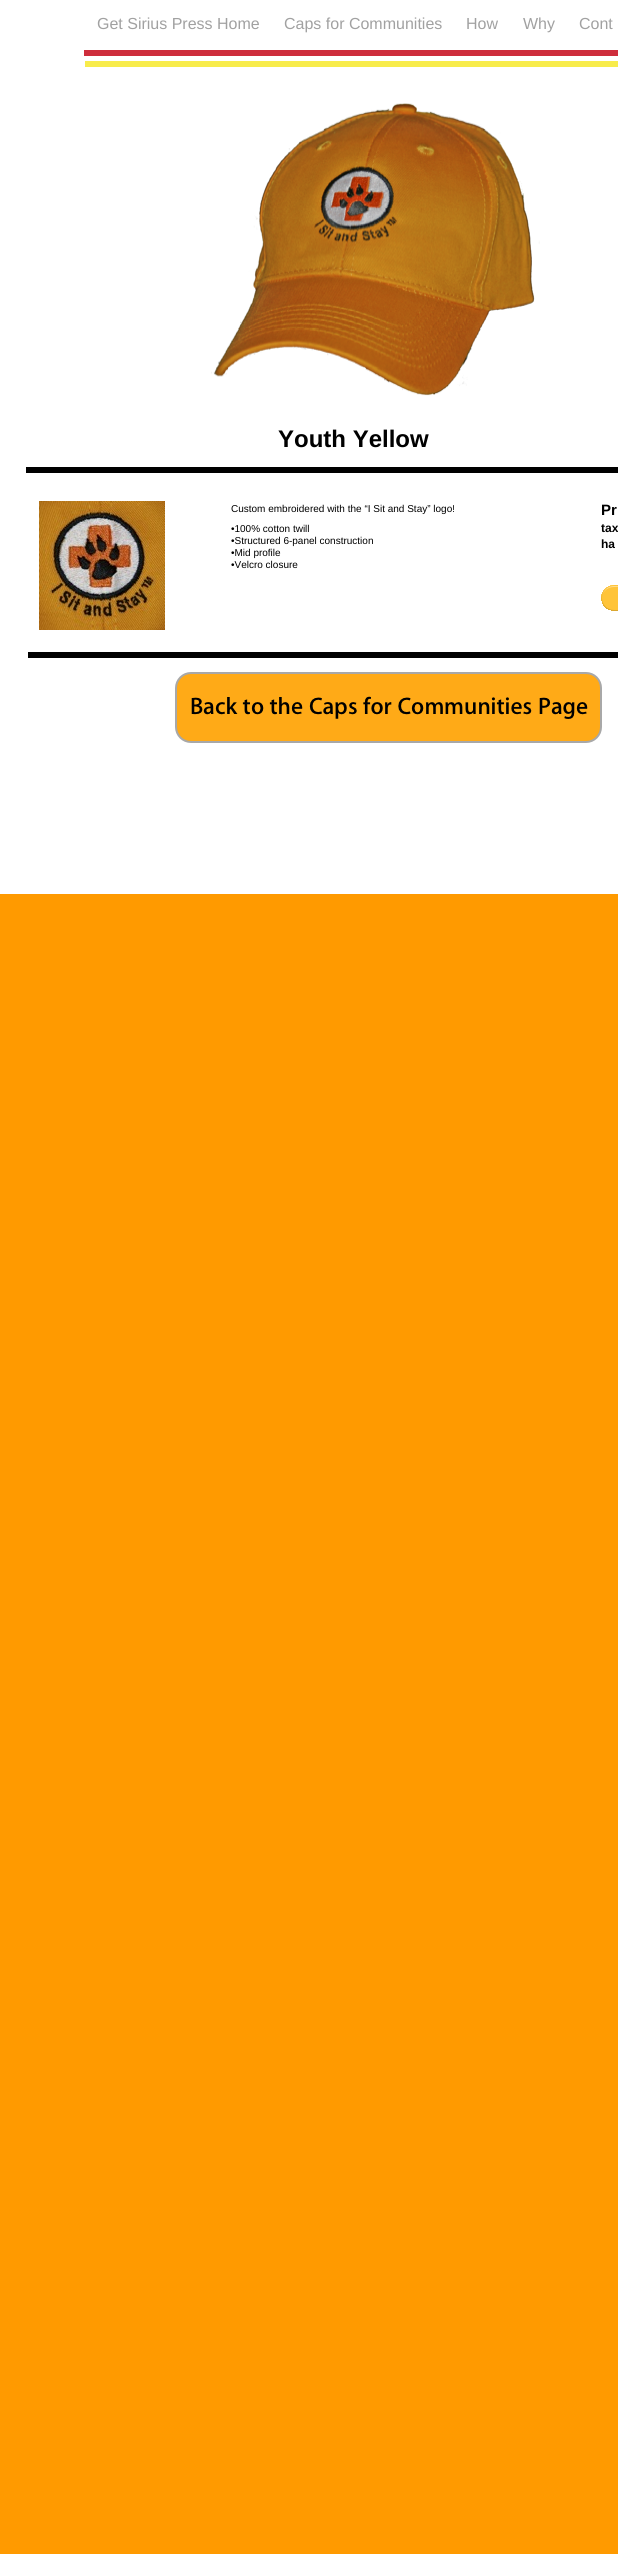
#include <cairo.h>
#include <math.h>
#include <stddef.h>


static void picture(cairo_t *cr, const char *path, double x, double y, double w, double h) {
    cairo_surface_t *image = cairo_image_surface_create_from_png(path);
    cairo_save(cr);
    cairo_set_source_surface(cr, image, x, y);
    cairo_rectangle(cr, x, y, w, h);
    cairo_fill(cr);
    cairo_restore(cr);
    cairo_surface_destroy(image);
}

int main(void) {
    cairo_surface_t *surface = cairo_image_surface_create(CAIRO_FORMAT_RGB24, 618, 2554);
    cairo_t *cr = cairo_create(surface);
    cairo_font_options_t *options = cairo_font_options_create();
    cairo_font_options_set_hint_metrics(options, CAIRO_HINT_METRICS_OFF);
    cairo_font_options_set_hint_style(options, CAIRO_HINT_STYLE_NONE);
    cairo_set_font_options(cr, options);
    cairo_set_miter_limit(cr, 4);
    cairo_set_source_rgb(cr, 1, 0.604, 0);
    cairo_paint(cr);
    cairo_set_source_rgb(cr, 1, 1, 1);
    cairo_rectangle(cr, 0, 0, 618, 894);
    cairo_fill(cr);
    cairo_select_font_face(cr, "Liberation Sans", CAIRO_FONT_SLANT_NORMAL, CAIRO_FONT_WEIGHT_NORMAL);
    cairo_set_font_size(cr, 16);
    cairo_set_source_rgb(cr, 0.631, 0.631, 0.631);
    cairo_move_to(cr, 97, 29);
    cairo_show_text(cr, "Get Sirius Press Home");
    cairo_move_to(cr, 284, 29);
    cairo_show_text(cr, "Caps for Communities");
    cairo_move_to(cr, 466, 29);
    cairo_show_text(cr, "How");
    cairo_move_to(cr, 523, 29);
    cairo_show_text(cr, "Why");
    cairo_move_to(cr, 579, 29);
    cairo_show_text(cr, "Cont");
    cairo_set_source_rgb(cr, 0.808, 0.176, 0.235);
    cairo_rectangle(cr, 84, 50, 534, 6);
    cairo_fill(cr);
    cairo_set_source_rgb(cr, 0.969, 0.922, 0.294);
    cairo_rectangle(cr, 85, 61, 533, 6);
    cairo_fill(cr);
    picture(cr, "img1.png", 211, 103, 329, 293);
    cairo_select_font_face(cr, "Liberation Sans", CAIRO_FONT_SLANT_NORMAL, CAIRO_FONT_WEIGHT_BOLD);
    cairo_set_font_size(cr, 24);
    cairo_set_source_rgb(cr, 0, 0, 0);
    cairo_move_to(cr, 278, 447);
    cairo_show_text(cr, "Youth Yellow");
    cairo_rectangle(cr, 26, 467, 592, 6);
    cairo_fill(cr);
    picture(cr, "img2.png", 39, 501, 126, 129);
    cairo_select_font_face(cr, "Liberation Sans", CAIRO_FONT_SLANT_NORMAL, CAIRO_FONT_WEIGHT_NORMAL);
    cairo_set_font_size(cr, 10);
    cairo_move_to(cr, 231, 512);
    cairo_show_text(cr, "Custom embroidered with the “I Sit and Stay” logo!");
    cairo_move_to(cr, 231, 532);
    cairo_show_text(cr, "•100% cotton twill");
    cairo_move_to(cr, 231, 544);
    cairo_show_text(cr, "•Structured 6-panel construction");
    cairo_move_to(cr, 231, 556);
    cairo_show_text(cr, "•Mid profile");
    cairo_move_to(cr, 231, 568);
    cairo_show_text(cr, "•Velcro closure");
    cairo_select_font_face(cr, "Liberation Sans", CAIRO_FONT_SLANT_NORMAL, CAIRO_FONT_WEIGHT_BOLD);
    cairo_set_font_size(cr, 15);
    cairo_move_to(cr, 601, 515);
    cairo_show_text(cr, "Pr");
    cairo_set_font_size(cr, 12);
    cairo_move_to(cr, 601, 532);
    cairo_show_text(cr, "tax");
    cairo_move_to(cr, 601, 548);
    cairo_show_text(cr, "ha");
    picture(cr, "img3.png", 601, 585, 17, 26);
    cairo_rectangle(cr, 28, 652, 590, 6);
    cairo_fill(cr);
    picture(cr, "img4.png", 175, 672, 427, 71);
    picture(cr, "img5.png", 191, 696, 397, 23);
    cairo_surface_write_to_png(surface, "page.png");
    cairo_font_options_destroy(options);
    cairo_destroy(cr);
    cairo_surface_destroy(surface);
    return 0;
}
